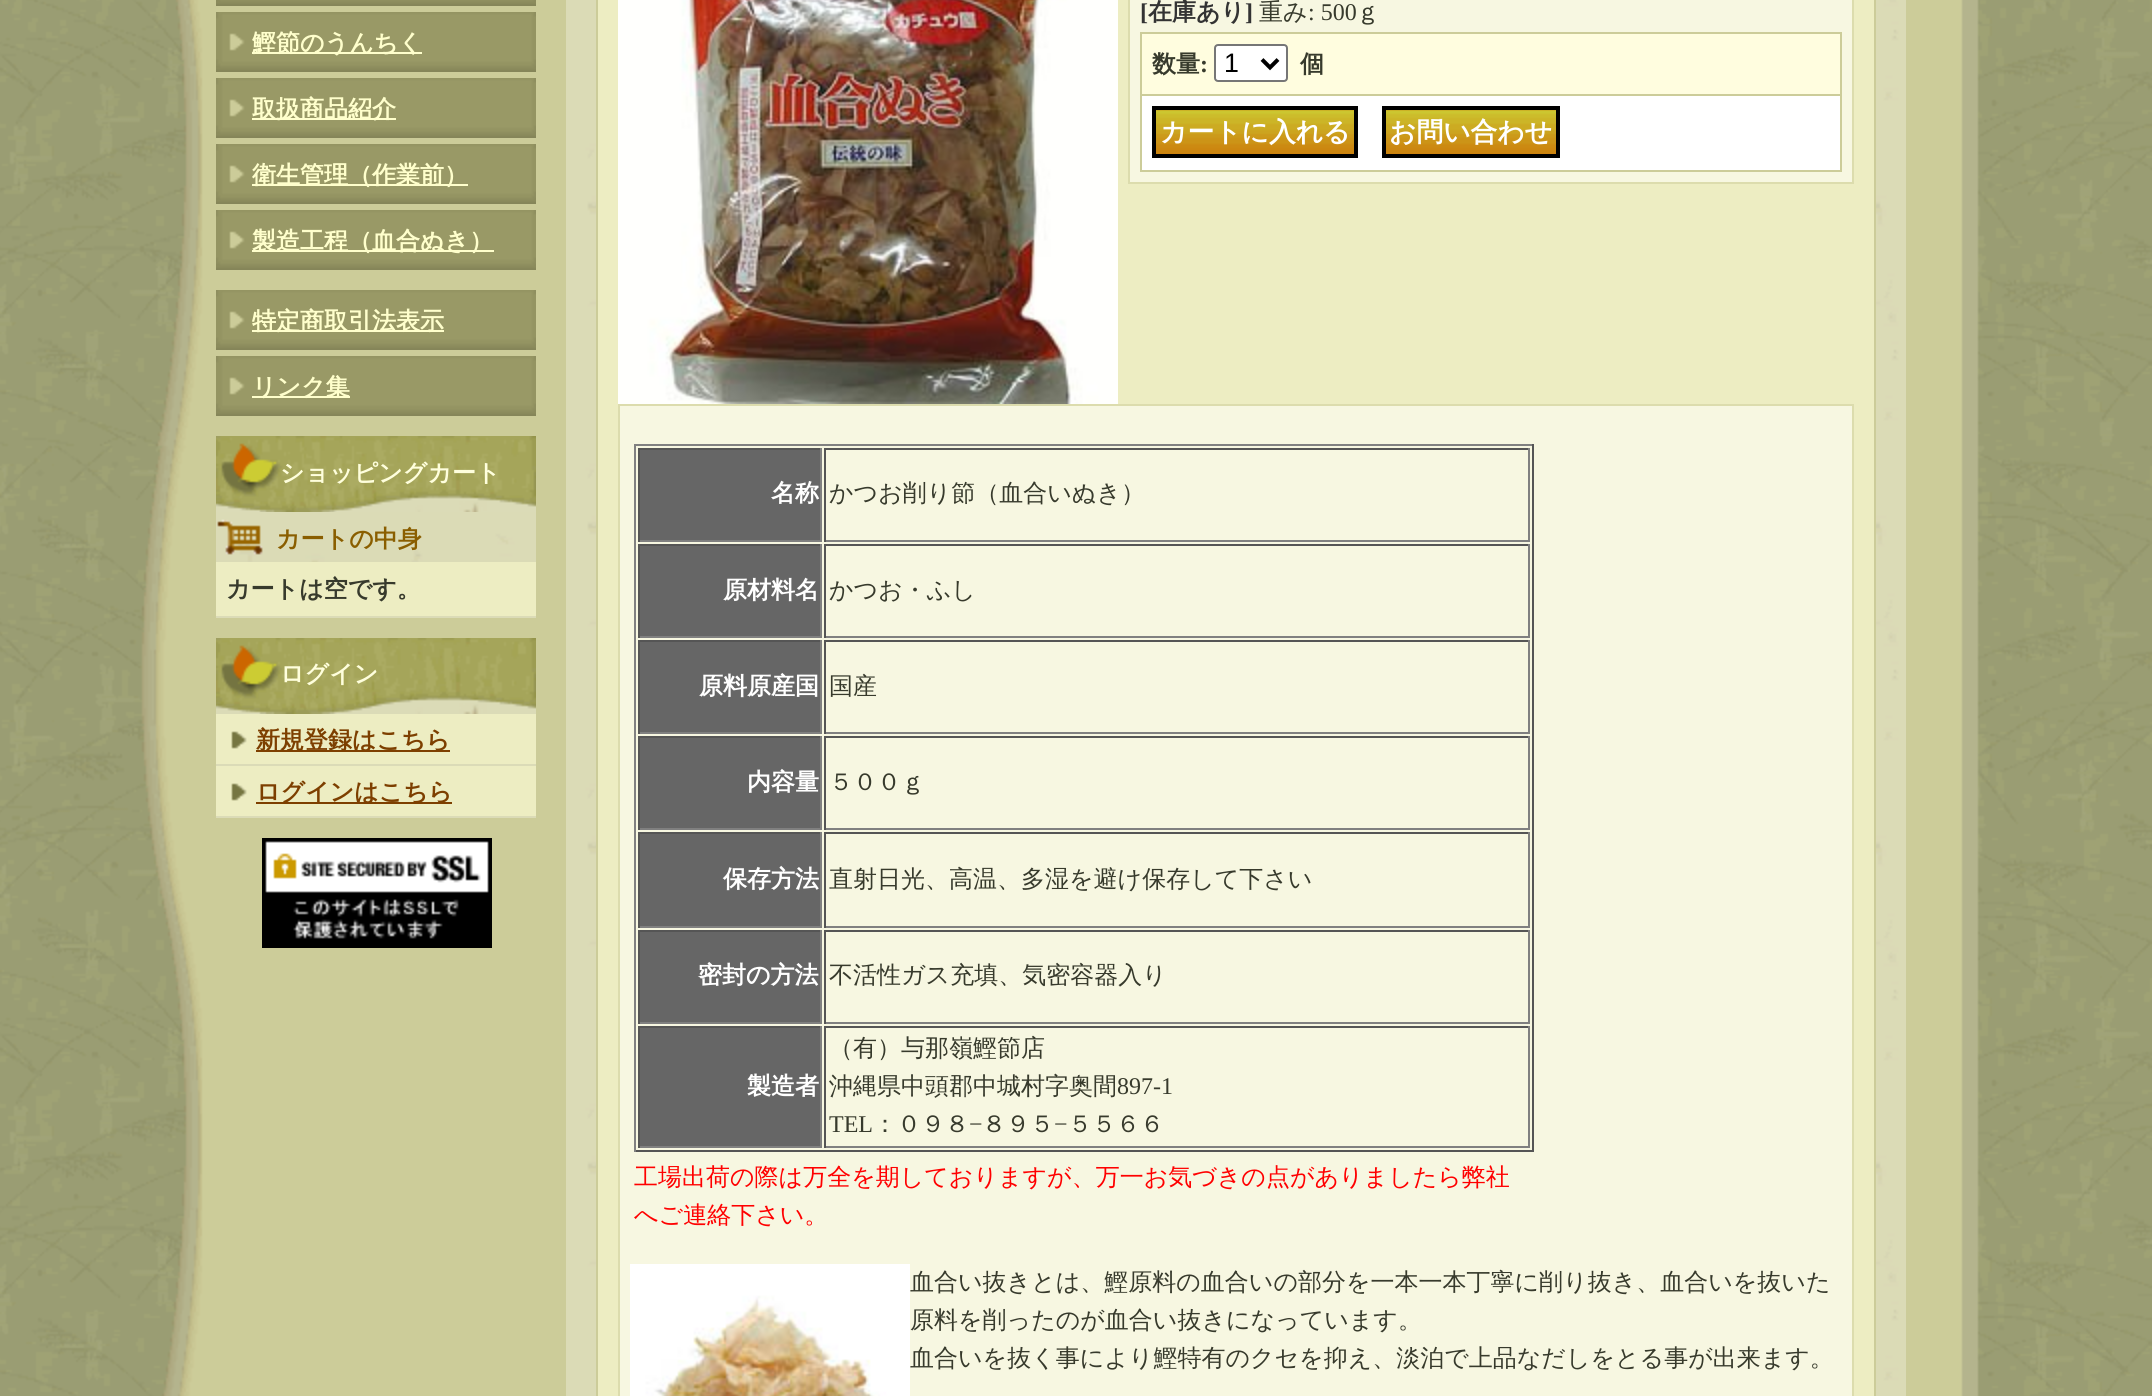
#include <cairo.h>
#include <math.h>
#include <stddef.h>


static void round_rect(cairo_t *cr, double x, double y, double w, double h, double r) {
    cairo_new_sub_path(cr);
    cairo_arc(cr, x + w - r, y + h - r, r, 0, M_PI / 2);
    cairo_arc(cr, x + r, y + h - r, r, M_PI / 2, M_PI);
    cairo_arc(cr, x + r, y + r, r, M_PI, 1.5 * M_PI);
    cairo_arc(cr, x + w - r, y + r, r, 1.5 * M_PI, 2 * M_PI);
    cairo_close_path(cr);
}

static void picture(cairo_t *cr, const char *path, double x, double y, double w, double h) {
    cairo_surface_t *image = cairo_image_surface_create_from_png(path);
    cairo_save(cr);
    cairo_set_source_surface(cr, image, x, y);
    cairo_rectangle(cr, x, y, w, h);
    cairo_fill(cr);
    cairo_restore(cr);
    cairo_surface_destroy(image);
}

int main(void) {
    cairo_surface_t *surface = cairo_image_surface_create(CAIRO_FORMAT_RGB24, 2152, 1396);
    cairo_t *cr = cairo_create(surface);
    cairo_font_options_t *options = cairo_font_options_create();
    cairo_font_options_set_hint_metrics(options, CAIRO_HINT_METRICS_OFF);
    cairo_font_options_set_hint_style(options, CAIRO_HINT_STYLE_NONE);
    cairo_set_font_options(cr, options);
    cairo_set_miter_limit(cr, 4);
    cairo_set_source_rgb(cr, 1, 1, 1);
    cairo_paint(cr);
    picture(cr, "img1.png", 0, 0, 2152, 1396);
    picture(cr, "img2.png", 216, 0, 320, 6);
    picture(cr, "img3.png", 216, 12, 320, 60);
    cairo_set_source_rgb(cr, 1, 1, 0.8);
    cairo_rectangle(cr, 252, 52, 170, 2);
    cairo_fill(cr);
    cairo_select_font_face(cr, "WenQuanYi Zen Hei", CAIRO_FONT_SLANT_NORMAL, CAIRO_FONT_WEIGHT_BOLD);
    cairo_set_font_size(cr, 24);
    cairo_move_to(cr, 252, 51);
    cairo_show_text(cr, "鰹節のうんちく");
    picture(cr, "img3.png", 216, 78, 320, 60);
    cairo_rectangle(cr, 252, 118, 144, 2);
    cairo_fill(cr);
    cairo_move_to(cr, 252, 117);
    cairo_show_text(cr, "取扱商品紹介");
    picture(cr, "img3.png", 216, 144, 320, 60);
    cairo_rectangle(cr, 252, 184, 216, 2);
    cairo_fill(cr);
    cairo_move_to(cr, 252, 183);
    cairo_show_text(cr, "衛生管理（作業前）");
    picture(cr, "img3.png", 216, 210, 320, 60);
    cairo_rectangle(cr, 252, 250, 242, 2);
    cairo_fill(cr);
    cairo_move_to(cr, 252, 249);
    cairo_show_text(cr, "製造工程（血合ぬき）");
    picture(cr, "img3.png", 216, 290, 320, 60);
    cairo_rectangle(cr, 252, 330, 192, 2);
    cairo_fill(cr);
    cairo_move_to(cr, 252, 329);
    cairo_show_text(cr, "特定商取引法表示");
    picture(cr, "img3.png", 216, 356, 320, 60);
    cairo_rectangle(cr, 252, 396, 98, 2);
    cairo_fill(cr);
    cairo_move_to(cr, 252, 395);
    cairo_show_text(cr, "リンク集");
    picture(cr, "img4.png", 216, 436, 320, 76);
    cairo_set_source_rgb(cr, 1, 1, 0.867);
    cairo_move_to(cr, 280, 481);
    cairo_show_text(cr, "ショッピングカート");
    picture(cr, "img5.png", 216, 512, 320, 50);
    picture(cr, "img6.png", 217, 519, 46, 36);
    cairo_set_source_rgb(cr, 0.541, 0.369, 0);
    cairo_move_to(cr, 276, 547);
    cairo_show_text(cr, "カートの中身");
    cairo_set_source_rgb(cr, 0.929, 0.929, 0.761);
    cairo_rectangle(cr, 216, 562, 320, 54);
    cairo_fill(cr);
    cairo_set_source_rgb(cr, 0.859, 0.859, 0.718);
    cairo_rectangle(cr, 216, 616, 320, 2);
    cairo_fill(cr);
    cairo_set_source_rgb(cr, 0.216, 0.227, 0.173);
    cairo_move_to(cr, 226, 597);
    cairo_show_text(cr, "カートは空です。");
    picture(cr, "img4.png", 216, 638, 320, 76);
    cairo_set_source_rgb(cr, 1, 1, 0.867);
    cairo_move_to(cr, 280, 682);
    cairo_show_text(cr, "ログイン");
    cairo_set_source_rgb(cr, 0.929, 0.929, 0.761);
    cairo_rectangle(cr, 216, 714, 320, 50);
    cairo_fill(cr);
    cairo_set_source_rgb(cr, 0.859, 0.859, 0.718);
    cairo_rectangle(cr, 216, 764, 320, 2);
    cairo_fill(cr);
    picture(cr, "img7.png", 231, 731, 16, 18);
    cairo_set_source_rgb(cr, 0.49, 0.247, 0);
    cairo_rectangle(cr, 256, 750, 194, 2);
    cairo_fill(cr);
    cairo_move_to(cr, 256, 748);
    cairo_show_text(cr, "新規登録はこちら");
    cairo_set_source_rgb(cr, 0.929, 0.929, 0.761);
    cairo_rectangle(cr, 216, 766, 320, 50);
    cairo_fill(cr);
    cairo_set_source_rgb(cr, 0.859, 0.859, 0.718);
    cairo_rectangle(cr, 216, 816, 320, 2);
    cairo_fill(cr);
    picture(cr, "img7.png", 231, 783, 16, 18);
    cairo_set_source_rgb(cr, 0.49, 0.247, 0);
    cairo_rectangle(cr, 256, 802, 196, 2);
    cairo_fill(cr);
    cairo_move_to(cr, 256, 800);
    cairo_show_text(cr, "ログインはこちら");
    picture(cr, "img8.png", 262, 838, 230, 110);
    picture(cr, "img9.png", 566, 0, 1340, 1396);
    cairo_set_source_rgb(cr, 0.929, 0.929, 0.761);
    cairo_rectangle(cr, 597, -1, 1278, 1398);
    cairo_fill_preserve(cr);
    cairo_set_source_rgb(cr, 0.8, 0.8, 0.6);
    cairo_stroke(cr);
    picture(cr, "img10.png", 618, 0, 500, 404);
    cairo_set_source_rgb(cr, 0.965, 0.965, 0.882);
    cairo_rectangle(cr, 1129, -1, 724, 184);
    cairo_fill_preserve(cr);
    cairo_set_source_rgb(cr, 0.863, 0.863, 0.678);
    cairo_stroke(cr);
    cairo_select_font_face(cr, "Liberation Serif", CAIRO_FONT_SLANT_NORMAL, CAIRO_FONT_WEIGHT_BOLD);
    cairo_set_source_rgb(cr, 0.2, 0.2, 0.2);
    cairo_move_to(cr, 1140, 20);
    cairo_show_text(cr, "[");
    cairo_select_font_face(cr, "WenQuanYi Zen Hei", CAIRO_FONT_SLANT_NORMAL, CAIRO_FONT_WEIGHT_BOLD);
    cairo_move_to(cr, 1148, 20);
    cairo_show_text(cr, "在庫あり");
    cairo_select_font_face(cr, "Liberation Serif", CAIRO_FONT_SLANT_NORMAL, CAIRO_FONT_WEIGHT_BOLD);
    cairo_move_to(cr, 1245, 20);
    cairo_show_text(cr, "]");
    cairo_select_font_face(cr, "WenQuanYi Zen Hei Medium", CAIRO_FONT_SLANT_NORMAL, CAIRO_FONT_WEIGHT_NORMAL);
    cairo_set_source_rgb(cr, 0.216, 0.227, 0.173);
    cairo_move_to(cr, 1259, 20);
    cairo_show_text(cr, "重み");
    cairo_select_font_face(cr, "Liberation Serif", CAIRO_FONT_SLANT_NORMAL, CAIRO_FONT_WEIGHT_NORMAL);
    cairo_move_to(cr, 1308, 20);
    cairo_show_text(cr, ": 500");
    cairo_select_font_face(cr, "WenQuanYi Zen Hei Medium", CAIRO_FONT_SLANT_NORMAL, CAIRO_FONT_WEIGHT_NORMAL);
    cairo_move_to(cr, 1356, 20);
    cairo_show_text(cr, "ｇ");
    cairo_set_source_rgb(cr, 1, 0.992, 0.875);
    cairo_rectangle(cr, 1142, 34, 698, 60);
    cairo_fill(cr);
    cairo_set_source_rgb(cr, 0.8, 0.8, 0.6);
    cairo_rectangle(cr, 1140, 32, 702, 2);
    cairo_fill(cr);
    cairo_rectangle(cr, 1840, 32, 2, 62);
    cairo_fill(cr);
    cairo_rectangle(cr, 1140, 32, 2, 62);
    cairo_fill(cr);
    cairo_select_font_face(cr, "WenQuanYi Zen Hei", CAIRO_FONT_SLANT_NORMAL, CAIRO_FONT_WEIGHT_BOLD);
    cairo_set_source_rgb(cr, 0.216, 0.227, 0.173);
    cairo_move_to(cr, 1152, 72);
    cairo_show_text(cr, "数量");
    cairo_select_font_face(cr, "Liberation Serif", CAIRO_FONT_SLANT_NORMAL, CAIRO_FONT_WEIGHT_BOLD);
    cairo_move_to(cr, 1200, 72);
    cairo_show_text(cr, ":");
    cairo_set_source_rgb(cr, 1, 1, 1);
    round_rect(cr, 1215, 45, 72, 36, 3);
    cairo_fill_preserve(cr);
    cairo_set_source_rgb(cr, 0.463, 0.463, 0.463);
    cairo_stroke(cr);
    cairo_new_path(cr);
    cairo_move_to(cr, 1262, 59.5);
    cairo_line_to(cr, 1270, 67.5);
    cairo_line_to(cr, 1278, 59.5);
    cairo_set_source_rgb(cr, 0, 0, 0);
    cairo_set_line_width(cr, 4);
    cairo_stroke(cr);
    cairo_select_font_face(cr, "Liberation Sans", CAIRO_FONT_SLANT_NORMAL, CAIRO_FONT_WEIGHT_NORMAL);
    cairo_set_font_size(cr, 26.75);
    cairo_move_to(cr, 1224, 72);
    cairo_show_text(cr, "1");
    cairo_select_font_face(cr, "WenQuanYi Zen Hei", CAIRO_FONT_SLANT_NORMAL, CAIRO_FONT_WEIGHT_BOLD);
    cairo_set_font_size(cr, 24);
    cairo_set_source_rgb(cr, 0.216, 0.227, 0.173);
    cairo_move_to(cr, 1300, 72);
    cairo_show_text(cr, "個");
    cairo_set_source_rgb(cr, 1, 1, 1);
    cairo_rectangle(cr, 1141, 95, 700, 76);
    cairo_fill_preserve(cr);
    cairo_set_source_rgb(cr, 0.8, 0.8, 0.6);
    cairo_set_line_width(cr, 2);
    cairo_stroke(cr);
    picture(cr, "img11.png", 1156, 110, 198, 44);
    cairo_rectangle(cr, 1154, 108, 202, 48);
    cairo_set_source_rgb(cr, 0, 0, 0);
    cairo_set_line_width(cr, 4);
    cairo_stroke(cr);
    cairo_set_font_size(cr, 26.75);
    cairo_set_source_rgb(cr, 1, 1, 1);
    cairo_move_to(cr, 1160, 141);
    cairo_show_text(cr, "カートに入れる");
    picture(cr, "img12.png", 1386, 110, 170, 44);
    cairo_rectangle(cr, 1384, 108, 174, 48);
    cairo_set_source_rgb(cr, 0, 0, 0);
    cairo_stroke(cr);
    cairo_set_source_rgb(cr, 1, 1, 1);
    cairo_move_to(cr, 1389, 141);
    cairo_show_text(cr, "お問い合わせ");
    cairo_set_source_rgb(cr, 0.965, 0.965, 0.882);
    cairo_rectangle(cr, 619, 405, 1234, 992);
    cairo_fill_preserve(cr);
    cairo_set_source_rgb(cr, 0.863, 0.863, 0.678);
    cairo_set_line_width(cr, 2);
    cairo_stroke(cr);
    cairo_set_source_rgb(cr, 0.502, 0.502, 0.502);
    cairo_rectangle(cr, 634, 444, 900, 2);
    cairo_fill(cr);
    cairo_set_source_rgb(cr, 0.333, 0.333, 0.333);
    cairo_rectangle(cr, 1532, 444, 2, 708);
    cairo_fill(cr);
    cairo_rectangle(cr, 634, 1150, 900, 2);
    cairo_fill(cr);
    cairo_set_source_rgb(cr, 0.502, 0.502, 0.502);
    cairo_rectangle(cr, 634, 444, 2, 708);
    cairo_fill(cr);
    cairo_set_source_rgb(cr, 0.4, 0.4, 0.4);
    cairo_rectangle(cr, 640, 450, 180, 90);
    cairo_fill(cr);
    cairo_set_source_rgb(cr, 0.333, 0.333, 0.333);
    cairo_rectangle(cr, 638, 448, 184, 2);
    cairo_fill(cr);
    cairo_set_source_rgb(cr, 0.502, 0.502, 0.502);
    cairo_rectangle(cr, 820, 448, 2, 94);
    cairo_fill(cr);
    cairo_rectangle(cr, 638, 540, 184, 2);
    cairo_fill(cr);
    cairo_set_source_rgb(cr, 0.333, 0.333, 0.333);
    cairo_rectangle(cr, 638, 448, 2, 94);
    cairo_fill(cr);
    cairo_set_font_size(cr, 24);
    cairo_set_source_rgb(cr, 1, 1, 1);
    cairo_move_to(cr, 771, 501);
    cairo_show_text(cr, "名称");
    cairo_set_source_rgb(cr, 0.333, 0.333, 0.333);
    cairo_rectangle(cr, 824, 448, 706, 2);
    cairo_fill(cr);
    cairo_set_source_rgb(cr, 0.502, 0.502, 0.502);
    cairo_rectangle(cr, 1528, 448, 2, 94);
    cairo_fill(cr);
    cairo_rectangle(cr, 824, 540, 706, 2);
    cairo_fill(cr);
    cairo_set_source_rgb(cr, 0.333, 0.333, 0.333);
    cairo_rectangle(cr, 824, 448, 2, 94);
    cairo_fill(cr);
    cairo_select_font_face(cr, "WenQuanYi Zen Hei Medium", CAIRO_FONT_SLANT_NORMAL, CAIRO_FONT_WEIGHT_NORMAL);
    cairo_set_source_rgb(cr, 0.216, 0.227, 0.173);
    cairo_move_to(cr, 829, 501);
    cairo_show_text(cr, "かつお削り節（血合いぬき）");
    cairo_set_source_rgb(cr, 0.4, 0.4, 0.4);
    cairo_rectangle(cr, 640, 546, 180, 90);
    cairo_fill(cr);
    cairo_set_source_rgb(cr, 0.333, 0.333, 0.333);
    cairo_rectangle(cr, 638, 544, 184, 2);
    cairo_fill(cr);
    cairo_set_source_rgb(cr, 0.502, 0.502, 0.502);
    cairo_rectangle(cr, 820, 544, 2, 94);
    cairo_fill(cr);
    cairo_rectangle(cr, 638, 636, 184, 2);
    cairo_fill(cr);
    cairo_set_source_rgb(cr, 0.333, 0.333, 0.333);
    cairo_rectangle(cr, 638, 544, 2, 94);
    cairo_fill(cr);
    cairo_select_font_face(cr, "WenQuanYi Zen Hei", CAIRO_FONT_SLANT_NORMAL, CAIRO_FONT_WEIGHT_BOLD);
    cairo_set_source_rgb(cr, 1, 1, 1);
    cairo_move_to(cr, 723, 598);
    cairo_show_text(cr, "原材料名");
    cairo_set_source_rgb(cr, 0.333, 0.333, 0.333);
    cairo_rectangle(cr, 824, 544, 706, 2);
    cairo_fill(cr);
    cairo_set_source_rgb(cr, 0.502, 0.502, 0.502);
    cairo_rectangle(cr, 1528, 544, 2, 94);
    cairo_fill(cr);
    cairo_rectangle(cr, 824, 636, 706, 2);
    cairo_fill(cr);
    cairo_set_source_rgb(cr, 0.333, 0.333, 0.333);
    cairo_rectangle(cr, 824, 544, 2, 94);
    cairo_fill(cr);
    cairo_select_font_face(cr, "WenQuanYi Zen Hei Medium", CAIRO_FONT_SLANT_NORMAL, CAIRO_FONT_WEIGHT_NORMAL);
    cairo_set_source_rgb(cr, 0.216, 0.227, 0.173);
    cairo_move_to(cr, 829, 598);
    cairo_show_text(cr, "かつお・ふし");
    cairo_set_source_rgb(cr, 0.4, 0.4, 0.4);
    cairo_rectangle(cr, 640, 642, 180, 90);
    cairo_fill(cr);
    cairo_set_source_rgb(cr, 0.333, 0.333, 0.333);
    cairo_rectangle(cr, 638, 640, 184, 2);
    cairo_fill(cr);
    cairo_set_source_rgb(cr, 0.502, 0.502, 0.502);
    cairo_rectangle(cr, 820, 640, 2, 94);
    cairo_fill(cr);
    cairo_rectangle(cr, 638, 732, 184, 2);
    cairo_fill(cr);
    cairo_set_source_rgb(cr, 0.333, 0.333, 0.333);
    cairo_rectangle(cr, 638, 640, 2, 94);
    cairo_fill(cr);
    cairo_select_font_face(cr, "WenQuanYi Zen Hei", CAIRO_FONT_SLANT_NORMAL, CAIRO_FONT_WEIGHT_BOLD);
    cairo_set_source_rgb(cr, 1, 1, 1);
    cairo_move_to(cr, 699, 694);
    cairo_show_text(cr, "原料原産国");
    cairo_set_source_rgb(cr, 0.333, 0.333, 0.333);
    cairo_rectangle(cr, 824, 640, 706, 2);
    cairo_fill(cr);
    cairo_set_source_rgb(cr, 0.502, 0.502, 0.502);
    cairo_rectangle(cr, 1528, 640, 2, 94);
    cairo_fill(cr);
    cairo_rectangle(cr, 824, 732, 706, 2);
    cairo_fill(cr);
    cairo_set_source_rgb(cr, 0.333, 0.333, 0.333);
    cairo_rectangle(cr, 824, 640, 2, 94);
    cairo_fill(cr);
    cairo_select_font_face(cr, "WenQuanYi Zen Hei Medium", CAIRO_FONT_SLANT_NORMAL, CAIRO_FONT_WEIGHT_NORMAL);
    cairo_set_source_rgb(cr, 0.216, 0.227, 0.173);
    cairo_move_to(cr, 829, 694);
    cairo_show_text(cr, "国産");
    cairo_set_source_rgb(cr, 0.4, 0.4, 0.4);
    cairo_rectangle(cr, 640, 738, 180, 90);
    cairo_fill(cr);
    cairo_set_source_rgb(cr, 0.333, 0.333, 0.333);
    cairo_rectangle(cr, 638, 736, 184, 2);
    cairo_fill(cr);
    cairo_set_source_rgb(cr, 0.502, 0.502, 0.502);
    cairo_rectangle(cr, 820, 736, 2, 94);
    cairo_fill(cr);
    cairo_rectangle(cr, 638, 828, 184, 2);
    cairo_fill(cr);
    cairo_set_source_rgb(cr, 0.333, 0.333, 0.333);
    cairo_rectangle(cr, 638, 736, 2, 94);
    cairo_fill(cr);
    cairo_select_font_face(cr, "WenQuanYi Zen Hei", CAIRO_FONT_SLANT_NORMAL, CAIRO_FONT_WEIGHT_BOLD);
    cairo_set_source_rgb(cr, 1, 1, 1);
    cairo_move_to(cr, 747, 790);
    cairo_show_text(cr, "内容量");
    cairo_set_source_rgb(cr, 0.333, 0.333, 0.333);
    cairo_rectangle(cr, 824, 736, 706, 2);
    cairo_fill(cr);
    cairo_set_source_rgb(cr, 0.502, 0.502, 0.502);
    cairo_rectangle(cr, 1528, 736, 2, 94);
    cairo_fill(cr);
    cairo_rectangle(cr, 824, 828, 706, 2);
    cairo_fill(cr);
    cairo_set_source_rgb(cr, 0.333, 0.333, 0.333);
    cairo_rectangle(cr, 824, 736, 2, 94);
    cairo_fill(cr);
    cairo_select_font_face(cr, "WenQuanYi Zen Hei Medium", CAIRO_FONT_SLANT_NORMAL, CAIRO_FONT_WEIGHT_NORMAL);
    cairo_set_source_rgb(cr, 0.216, 0.227, 0.173);
    cairo_move_to(cr, 829, 790);
    cairo_show_text(cr, "５００ｇ");
    cairo_set_source_rgb(cr, 0.4, 0.4, 0.4);
    cairo_rectangle(cr, 640, 834, 180, 92);
    cairo_fill(cr);
    cairo_set_source_rgb(cr, 0.333, 0.333, 0.333);
    cairo_rectangle(cr, 638, 832, 184, 2);
    cairo_fill(cr);
    cairo_set_source_rgb(cr, 0.502, 0.502, 0.502);
    cairo_rectangle(cr, 820, 832, 2, 96);
    cairo_fill(cr);
    cairo_rectangle(cr, 638, 926, 184, 2);
    cairo_fill(cr);
    cairo_set_source_rgb(cr, 0.333, 0.333, 0.333);
    cairo_rectangle(cr, 638, 832, 2, 96);
    cairo_fill(cr);
    cairo_select_font_face(cr, "WenQuanYi Zen Hei", CAIRO_FONT_SLANT_NORMAL, CAIRO_FONT_WEIGHT_BOLD);
    cairo_set_source_rgb(cr, 1, 1, 1);
    cairo_move_to(cr, 723, 887);
    cairo_show_text(cr, "保存方法");
    cairo_set_source_rgb(cr, 0.333, 0.333, 0.333);
    cairo_rectangle(cr, 824, 832, 706, 2);
    cairo_fill(cr);
    cairo_set_source_rgb(cr, 0.502, 0.502, 0.502);
    cairo_rectangle(cr, 1528, 832, 2, 96);
    cairo_fill(cr);
    cairo_rectangle(cr, 824, 926, 706, 2);
    cairo_fill(cr);
    cairo_set_source_rgb(cr, 0.333, 0.333, 0.333);
    cairo_rectangle(cr, 824, 832, 2, 96);
    cairo_fill(cr);
    cairo_select_font_face(cr, "WenQuanYi Zen Hei Medium", CAIRO_FONT_SLANT_NORMAL, CAIRO_FONT_WEIGHT_NORMAL);
    cairo_set_source_rgb(cr, 0.216, 0.227, 0.173);
    cairo_move_to(cr, 829, 887);
    cairo_show_text(cr, "直射日光、高温、多湿を避け保存して下さい");
    cairo_set_source_rgb(cr, 0.4, 0.4, 0.4);
    cairo_rectangle(cr, 640, 932, 180, 90);
    cairo_fill(cr);
    cairo_set_source_rgb(cr, 0.333, 0.333, 0.333);
    cairo_rectangle(cr, 638, 930, 184, 2);
    cairo_fill(cr);
    cairo_set_source_rgb(cr, 0.502, 0.502, 0.502);
    cairo_rectangle(cr, 820, 930, 2, 94);
    cairo_fill(cr);
    cairo_rectangle(cr, 638, 1022, 184, 2);
    cairo_fill(cr);
    cairo_set_source_rgb(cr, 0.333, 0.333, 0.333);
    cairo_rectangle(cr, 638, 930, 2, 94);
    cairo_fill(cr);
    cairo_select_font_face(cr, "WenQuanYi Zen Hei", CAIRO_FONT_SLANT_NORMAL, CAIRO_FONT_WEIGHT_BOLD);
    cairo_set_source_rgb(cr, 1, 1, 1);
    cairo_move_to(cr, 698, 983);
    cairo_show_text(cr, "密封の方法");
    cairo_set_source_rgb(cr, 0.333, 0.333, 0.333);
    cairo_rectangle(cr, 824, 930, 706, 2);
    cairo_fill(cr);
    cairo_set_source_rgb(cr, 0.502, 0.502, 0.502);
    cairo_rectangle(cr, 1528, 930, 2, 94);
    cairo_fill(cr);
    cairo_rectangle(cr, 824, 1022, 706, 2);
    cairo_fill(cr);
    cairo_set_source_rgb(cr, 0.333, 0.333, 0.333);
    cairo_rectangle(cr, 824, 930, 2, 94);
    cairo_fill(cr);
    cairo_select_font_face(cr, "WenQuanYi Zen Hei Medium", CAIRO_FONT_SLANT_NORMAL, CAIRO_FONT_WEIGHT_NORMAL);
    cairo_set_source_rgb(cr, 0.216, 0.227, 0.173);
    cairo_move_to(cr, 829, 983);
    cairo_show_text(cr, "不活性ガス充填、気密容器入り");
    cairo_set_source_rgb(cr, 0.4, 0.4, 0.4);
    cairo_rectangle(cr, 640, 1028, 180, 118);
    cairo_fill(cr);
    cairo_set_source_rgb(cr, 0.333, 0.333, 0.333);
    cairo_rectangle(cr, 638, 1026, 184, 2);
    cairo_fill(cr);
    cairo_set_source_rgb(cr, 0.502, 0.502, 0.502);
    cairo_rectangle(cr, 820, 1026, 2, 122);
    cairo_fill(cr);
    cairo_rectangle(cr, 638, 1146, 184, 2);
    cairo_fill(cr);
    cairo_set_source_rgb(cr, 0.333, 0.333, 0.333);
    cairo_rectangle(cr, 638, 1026, 2, 122);
    cairo_fill(cr);
    cairo_select_font_face(cr, "WenQuanYi Zen Hei", CAIRO_FONT_SLANT_NORMAL, CAIRO_FONT_WEIGHT_BOLD);
    cairo_set_source_rgb(cr, 1, 1, 1);
    cairo_move_to(cr, 747, 1094);
    cairo_show_text(cr, "製造者");
    cairo_set_source_rgb(cr, 0.333, 0.333, 0.333);
    cairo_rectangle(cr, 824, 1026, 706, 2);
    cairo_fill(cr);
    cairo_set_source_rgb(cr, 0.502, 0.502, 0.502);
    cairo_rectangle(cr, 1528, 1026, 2, 122);
    cairo_fill(cr);
    cairo_rectangle(cr, 824, 1146, 706, 2);
    cairo_fill(cr);
    cairo_set_source_rgb(cr, 0.333, 0.333, 0.333);
    cairo_rectangle(cr, 824, 1026, 2, 122);
    cairo_fill(cr);
    cairo_select_font_face(cr, "WenQuanYi Zen Hei Medium", CAIRO_FONT_SLANT_NORMAL, CAIRO_FONT_WEIGHT_NORMAL);
    cairo_set_source_rgb(cr, 0.216, 0.227, 0.173);
    cairo_move_to(cr, 829, 1056);
    cairo_show_text(cr, "（有）与那嶺鰹節店");
    cairo_move_to(cr, 829, 1094);
    cairo_show_text(cr, "沖縄県中頭郡中城村字奥間");
    cairo_select_font_face(cr, "Liberation Serif", CAIRO_FONT_SLANT_NORMAL, CAIRO_FONT_WEIGHT_NORMAL);
    cairo_move_to(cr, 1117, 1094);
    cairo_show_text(cr, "897-1");
    cairo_move_to(cr, 829, 1132);
    cairo_show_text(cr, "TEL");
    cairo_select_font_face(cr, "WenQuanYi Zen Hei Medium", CAIRO_FONT_SLANT_NORMAL, CAIRO_FONT_WEIGHT_NORMAL);
    cairo_move_to(cr, 873, 1132);
    cairo_show_text(cr, "：０９８");
    cairo_select_font_face(cr, "Liberation Serif", CAIRO_FONT_SLANT_NORMAL, CAIRO_FONT_WEIGHT_NORMAL);
    cairo_move_to(cr, 969, 1132);
    cairo_show_text(cr, "−");
    cairo_select_font_face(cr, "WenQuanYi Zen Hei Medium", CAIRO_FONT_SLANT_NORMAL, CAIRO_FONT_WEIGHT_NORMAL);
    cairo_move_to(cr, 982, 1132);
    cairo_show_text(cr, "８９５");
    cairo_select_font_face(cr, "Liberation Serif", CAIRO_FONT_SLANT_NORMAL, CAIRO_FONT_WEIGHT_NORMAL);
    cairo_move_to(cr, 1054, 1132);
    cairo_show_text(cr, "−");
    cairo_select_font_face(cr, "WenQuanYi Zen Hei Medium", CAIRO_FONT_SLANT_NORMAL, CAIRO_FONT_WEIGHT_NORMAL);
    cairo_move_to(cr, 1068, 1132);
    cairo_show_text(cr, "５５６６");
    cairo_set_source_rgb(cr, 1, 0, 0);
    cairo_move_to(cr, 634, 1185);
    cairo_show_text(cr, "工場出荷の際は万全を期しておりますが、万一お気づきの点がありましたら弊社");
    cairo_move_to(cr, 634, 1223);
    cairo_show_text(cr, "へご連絡下さい。");
    picture(cr, "img13.png", 630, 1264, 280, 132);
    cairo_set_source_rgb(cr, 0.216, 0.227, 0.173);
    cairo_move_to(cr, 910, 1290);
    cairo_show_text(cr, "血合い抜きとは、鰹原料の血合いの部分を一本一本丁寧に削り抜き、血合いを抜いた");
    cairo_move_to(cr, 910, 1328);
    cairo_show_text(cr, "原料を削ったのが血合い抜きになっています。");
    cairo_move_to(cr, 910, 1366);
    cairo_show_text(cr, "血合いを抜く事により鰹特有のクセを抑え、淡泊で上品なだしをとる事が出来ます。");
    cairo_surface_write_to_png(surface, "page.png");
    cairo_font_options_destroy(options);
    cairo_destroy(cr);
    cairo_surface_destroy(surface);
    return 0;
}
